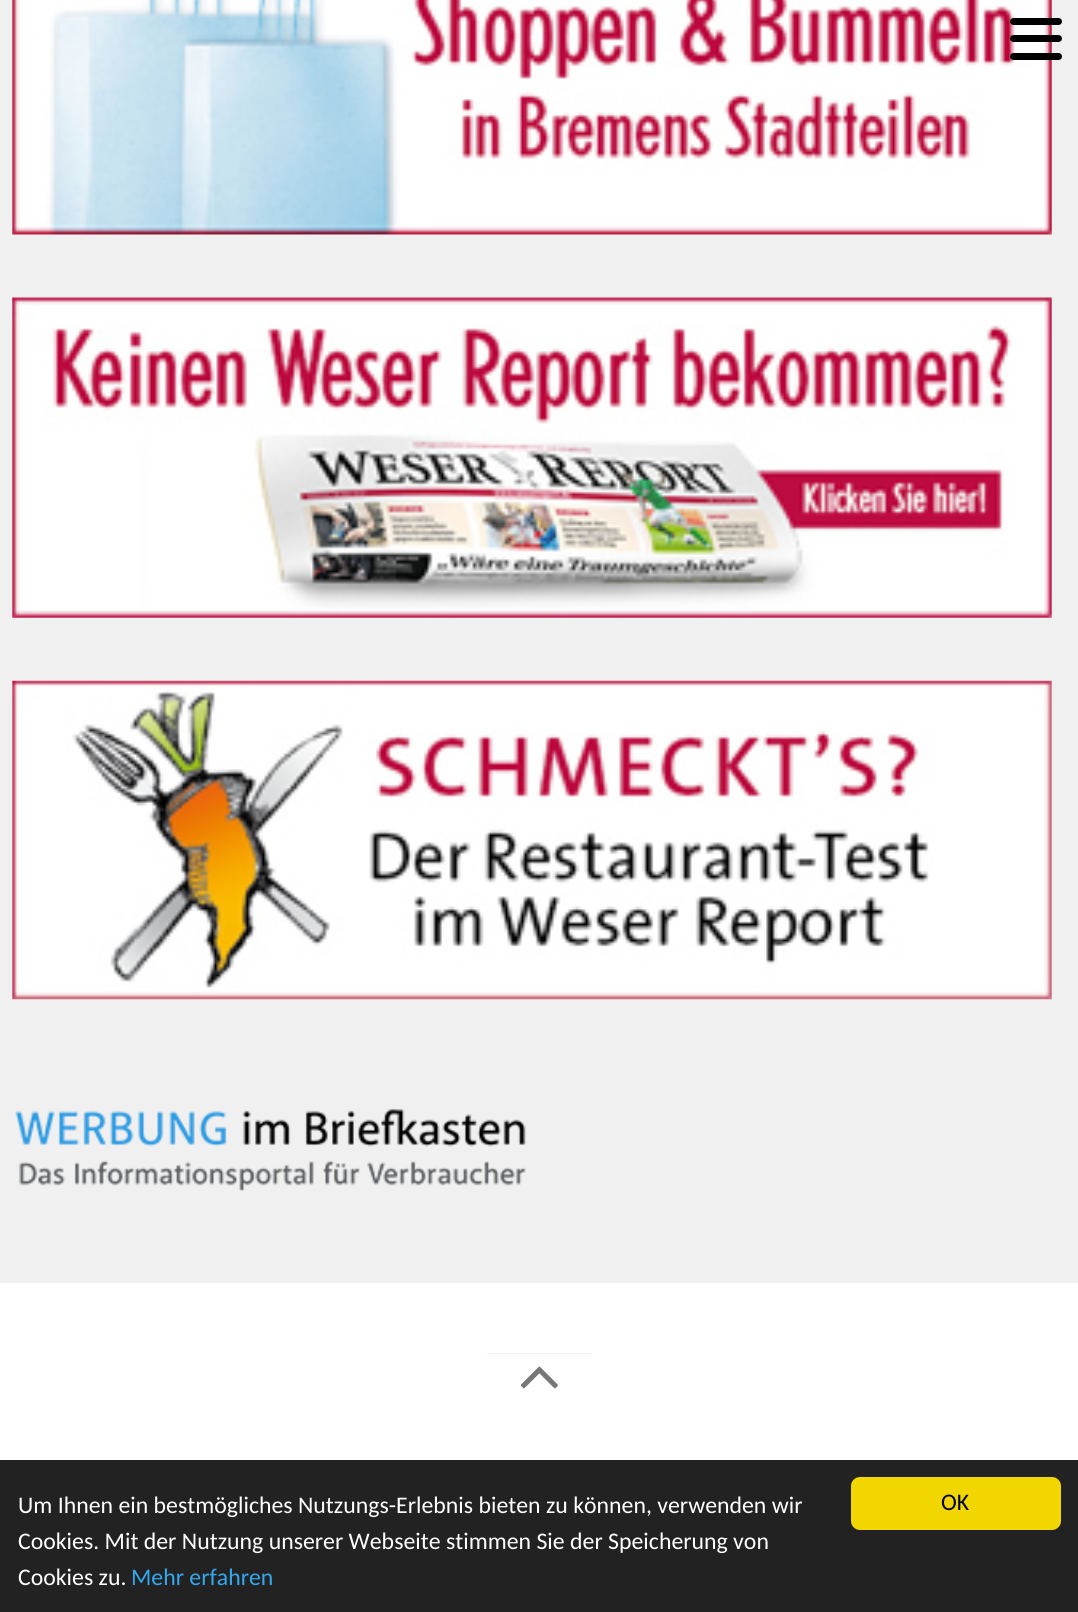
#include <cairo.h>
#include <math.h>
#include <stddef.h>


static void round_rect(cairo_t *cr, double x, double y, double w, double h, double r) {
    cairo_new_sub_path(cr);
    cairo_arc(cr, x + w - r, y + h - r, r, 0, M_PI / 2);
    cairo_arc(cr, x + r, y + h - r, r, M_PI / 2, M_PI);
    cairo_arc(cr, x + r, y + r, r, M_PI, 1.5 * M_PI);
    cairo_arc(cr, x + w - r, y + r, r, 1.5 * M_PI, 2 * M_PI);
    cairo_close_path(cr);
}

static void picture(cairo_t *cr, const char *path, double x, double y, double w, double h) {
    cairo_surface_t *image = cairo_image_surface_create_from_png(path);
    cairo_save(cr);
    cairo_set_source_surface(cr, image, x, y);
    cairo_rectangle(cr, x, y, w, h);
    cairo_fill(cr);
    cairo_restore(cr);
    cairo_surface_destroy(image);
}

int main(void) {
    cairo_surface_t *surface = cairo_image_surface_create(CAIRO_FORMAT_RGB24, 1078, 1612);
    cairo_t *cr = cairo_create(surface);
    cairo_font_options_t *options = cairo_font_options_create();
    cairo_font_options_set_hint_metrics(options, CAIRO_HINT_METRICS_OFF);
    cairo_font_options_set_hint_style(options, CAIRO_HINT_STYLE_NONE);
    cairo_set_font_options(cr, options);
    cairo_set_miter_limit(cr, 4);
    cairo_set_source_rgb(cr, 1, 1, 1);
    cairo_paint(cr);
    cairo_set_source_rgb(cr, 0.941, 0.941, 0.941);
    cairo_rectangle(cr, 0, 0, 1078, 1283);
    cairo_fill(cr);
    picture(cr, "img1.png", 12, 0, 1040, 235);
    picture(cr, "img2.png", 12, 297, 1040, 321);
    picture(cr, "img3.png", 12, 680, 1040, 320);
    picture(cr, "img4.png", 15, 1109, 511, 82);
    cairo_set_source_rgb(cr, 0.949, 0.949, 0.949);
    cairo_rectangle(cr, 487, 1353, 105, 1);
    cairo_fill(cr);
    picture(cr, "img5.png", 520, 1366, 38, 23);
    cairo_set_source_rgb(cr, 0, 0, 0);
    round_rect(cr, 1010, 53, 52, 7, 3.5);
    cairo_fill(cr);
    round_rect(cr, 1010, 18, 52, 7, 3.5);
    cairo_fill(cr);
    round_rect(cr, 1010, 35, 52, 7, 3.5);
    cairo_fill(cr);
    cairo_set_source_rgb(cr, 0.133, 0.133, 0.133);
    cairo_rectangle(cr, 0, 1460, 1078, 152);
    cairo_fill(cr);
    cairo_select_font_face(cr, "Carlito", CAIRO_FONT_SLANT_NORMAL, CAIRO_FONT_WEIGHT_NORMAL);
    cairo_set_font_size(cr, 23.8);
    cairo_set_source_rgb(cr, 1, 1, 1);
    cairo_move_to(cr, 18, 1513);
    cairo_show_text(cr, "Um Ihnen ein bestmögliches Nutzungs-Erlebnis bieten zu können, verwenden wir");
    cairo_move_to(cr, 18, 1549);
    cairo_show_text(cr, "Cookies. Mit der Nutzung unserer Webseite stimmen Sie der Speicherung von");
    cairo_move_to(cr, 18, 1585);
    cairo_show_text(cr, "Cookies zu.");
    cairo_set_source_rgb(cr, 0.192, 0.659, 0.941);
    cairo_move_to(cr, 131, 1585);
    cairo_show_text(cr, "Mehr erfahren");
    cairo_set_source_rgb(cr, 0.945, 0.839, 0);
    round_rect(cr, 851, 1477, 210, 53, 9);
    cairo_fill(cr);
    cairo_set_source_rgb(cr, 0, 0, 0);
    cairo_move_to(cr, 941, 1510);
    cairo_show_text(cr, "OK");
    cairo_surface_write_to_png(surface, "page.png");
    cairo_font_options_destroy(options);
    cairo_destroy(cr);
    cairo_surface_destroy(surface);
    return 0;
}
